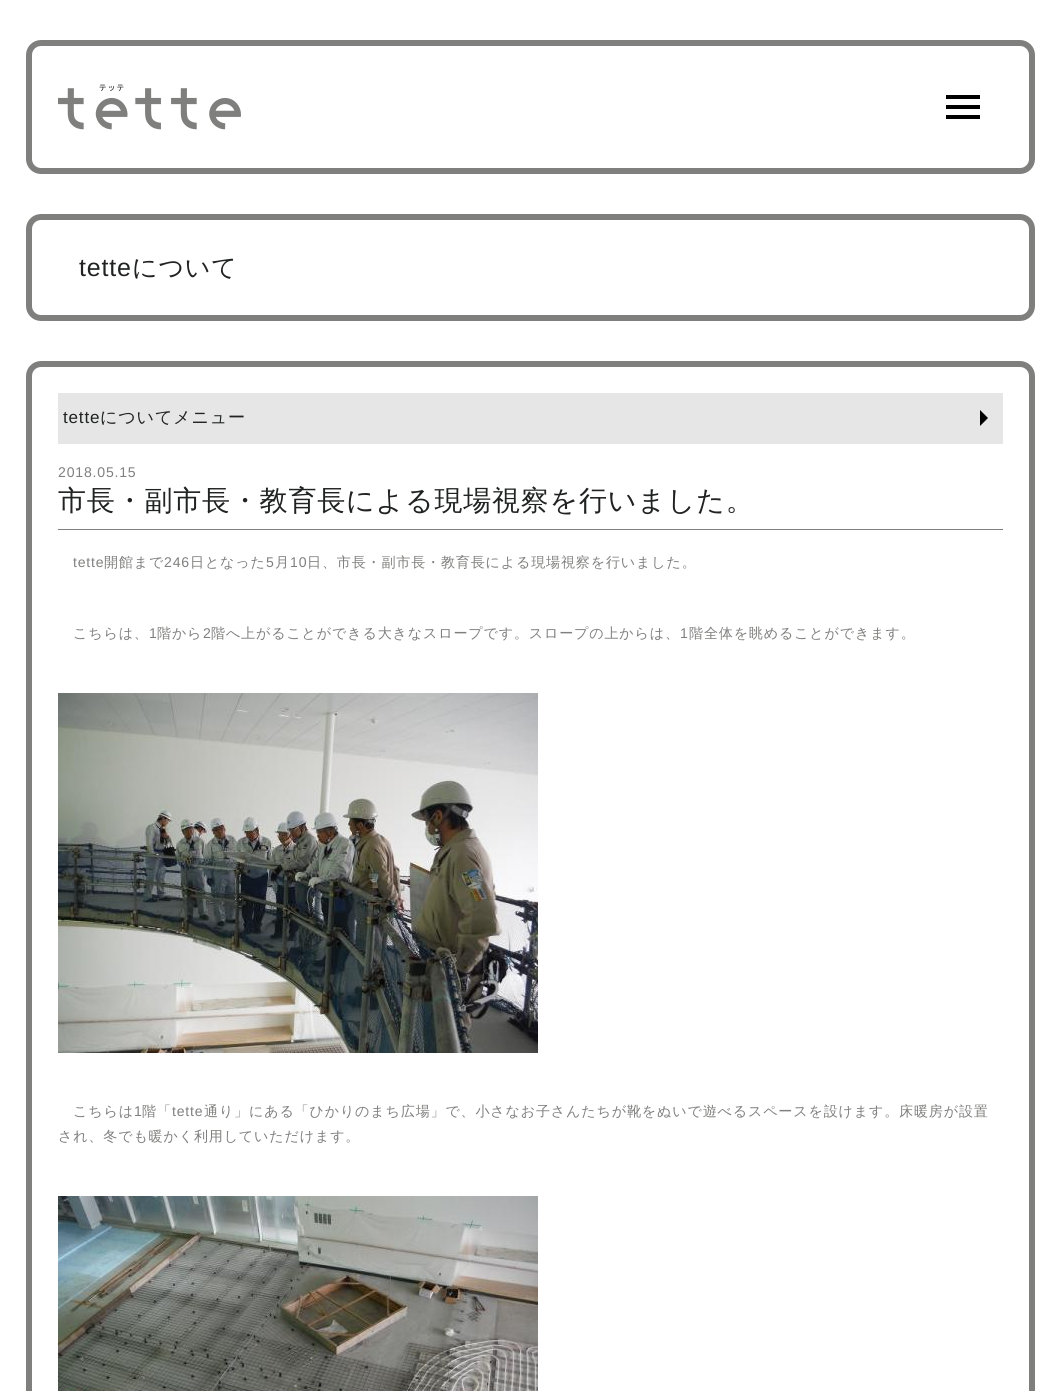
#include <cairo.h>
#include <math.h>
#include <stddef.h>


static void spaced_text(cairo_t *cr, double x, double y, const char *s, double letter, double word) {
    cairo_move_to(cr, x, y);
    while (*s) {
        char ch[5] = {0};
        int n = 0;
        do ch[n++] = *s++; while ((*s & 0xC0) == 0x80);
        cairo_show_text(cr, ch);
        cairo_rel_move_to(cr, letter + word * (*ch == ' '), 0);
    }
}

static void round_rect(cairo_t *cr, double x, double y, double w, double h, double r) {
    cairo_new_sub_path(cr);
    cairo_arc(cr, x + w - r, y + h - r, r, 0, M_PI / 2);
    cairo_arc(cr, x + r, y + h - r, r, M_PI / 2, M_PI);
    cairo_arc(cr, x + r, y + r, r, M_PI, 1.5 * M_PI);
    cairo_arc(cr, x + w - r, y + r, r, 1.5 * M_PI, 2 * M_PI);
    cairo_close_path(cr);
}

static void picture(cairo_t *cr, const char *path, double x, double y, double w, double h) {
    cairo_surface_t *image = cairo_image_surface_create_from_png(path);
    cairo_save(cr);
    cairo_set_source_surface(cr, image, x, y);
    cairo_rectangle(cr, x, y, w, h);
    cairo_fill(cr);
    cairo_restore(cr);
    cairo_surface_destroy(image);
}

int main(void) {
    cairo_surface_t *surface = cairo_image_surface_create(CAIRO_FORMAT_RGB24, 1061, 1391);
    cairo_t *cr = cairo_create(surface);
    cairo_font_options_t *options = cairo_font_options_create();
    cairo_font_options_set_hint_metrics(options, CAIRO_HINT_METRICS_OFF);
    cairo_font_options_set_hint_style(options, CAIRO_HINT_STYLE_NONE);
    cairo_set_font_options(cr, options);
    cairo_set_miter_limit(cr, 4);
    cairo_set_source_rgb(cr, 1, 1, 1);
    cairo_paint(cr);
    round_rect(cr, 29, 43, 1003, 128, 12);
    cairo_set_source_rgb(cr, 0.498, 0.498, 0.494);
    cairo_set_line_width(cr, 6);
    cairo_stroke(cr);
    picture(cr, "img1.png", 58, 84, 183, 46);
    cairo_set_source_rgb(cr, 0, 0, 0);
    cairo_rectangle(cr, 946, 95, 34, 4);
    cairo_fill(cr);
    cairo_rectangle(cr, 946, 105, 34, 4);
    cairo_fill(cr);
    cairo_rectangle(cr, 946, 115, 34, 4);
    cairo_fill(cr);
    round_rect(cr, 29, 217, 1003, 101, 12);
    cairo_set_source_rgb(cr, 0.498, 0.498, 0.494);
    cairo_stroke(cr);
    cairo_select_font_face(cr, "Liberation Sans", CAIRO_FONT_SLANT_NORMAL, CAIRO_FONT_WEIGHT_NORMAL);
    cairo_set_font_size(cr, 25);
    cairo_set_source_rgb(cr, 0.129, 0.137, 0.133);
    spaced_text(cr, 79, 276, "tette", 0.8, 0);
    cairo_select_font_face(cr, "WenQuanYi Zen Hei Medium", CAIRO_FONT_SLANT_NORMAL, CAIRO_FONT_WEIGHT_NORMAL);
    spaced_text(cr, 132, 276, "について", 0.8, 0);
    round_rect(cr, 29, 364, 1003, 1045, 12);
    cairo_set_source_rgb(cr, 0.498, 0.498, 0.494);
    cairo_stroke(cr);
    cairo_set_source_rgb(cr, 0.902, 0.902, 0.902);
    cairo_rectangle(cr, 58, 393, 945, 51);
    cairo_fill(cr);
    cairo_select_font_face(cr, "Liberation Sans", CAIRO_FONT_SLANT_NORMAL, CAIRO_FONT_WEIGHT_NORMAL);
    cairo_set_font_size(cr, 17.1);
    cairo_set_source_rgb(cr, 0.129, 0.137, 0.133);
    spaced_text(cr, 63, 423, "tette", 0.8, 0);
    cairo_select_font_face(cr, "WenQuanYi Zen Hei Medium", CAIRO_FONT_SLANT_NORMAL, CAIRO_FONT_WEIGHT_NORMAL);
    spaced_text(cr, 100, 423, "についてメニュー", 0.8, 0);
    cairo_set_source_rgb(cr, 0, 0, 0);
    cairo_new_path(cr);
    cairo_move_to(cr, 980, 426);
    cairo_line_to(cr, 980, 410);
    cairo_line_to(cr, 988, 418);
    cairo_close_path(cr);
    cairo_fill(cr);
    cairo_select_font_face(cr, "Liberation Sans", CAIRO_FONT_SLANT_NORMAL, CAIRO_FONT_WEIGHT_NORMAL);
    cairo_set_font_size(cr, 14.08);
    cairo_set_source_rgb(cr, 0.498, 0.498, 0.494);
    spaced_text(cr, 58, 477, "2018.05.15", 0.8, 0);
    cairo_rectangle(cr, 58, 529, 945, 1);
    cairo_fill(cr);
    cairo_select_font_face(cr, "WenQuanYi Zen Hei Medium", CAIRO_FONT_SLANT_NORMAL, CAIRO_FONT_WEIGHT_NORMAL);
    cairo_set_font_size(cr, 28);
    cairo_set_source_rgb(cr, 0.129, 0.137, 0.133);
    spaced_text(cr, 58, 510, "市長・副市長・教育長による現場視察を行いました。", 0.8, 0);
    cairo_select_font_face(cr, "Liberation Sans", CAIRO_FONT_SLANT_NORMAL, CAIRO_FONT_WEIGHT_NORMAL);
    cairo_set_font_size(cr, 14.08);
    cairo_set_source_rgb(cr, 0.498, 0.498, 0.494);
    spaced_text(cr, 73, 567, "tette", 0.8, 0);
    cairo_select_font_face(cr, "WenQuanYi Zen Hei Medium", CAIRO_FONT_SLANT_NORMAL, CAIRO_FONT_WEIGHT_NORMAL);
    spaced_text(cr, 104, 567, "開館まで", 0.8, 0);
    cairo_select_font_face(cr, "Liberation Sans", CAIRO_FONT_SLANT_NORMAL, CAIRO_FONT_WEIGHT_NORMAL);
    spaced_text(cr, 164, 567, "246", 0.8, 0);
    cairo_select_font_face(cr, "WenQuanYi Zen Hei Medium", CAIRO_FONT_SLANT_NORMAL, CAIRO_FONT_WEIGHT_NORMAL);
    spaced_text(cr, 190, 567, "日となった", 0.8, 0);
    cairo_select_font_face(cr, "Liberation Sans", CAIRO_FONT_SLANT_NORMAL, CAIRO_FONT_WEIGHT_NORMAL);
    spaced_text(cr, 266, 567, "5", 0.8, 0);
    cairo_select_font_face(cr, "WenQuanYi Zen Hei Medium", CAIRO_FONT_SLANT_NORMAL, CAIRO_FONT_WEIGHT_NORMAL);
    spaced_text(cr, 275, 567, "月", 0.8, 0);
    cairo_select_font_face(cr, "Liberation Sans", CAIRO_FONT_SLANT_NORMAL, CAIRO_FONT_WEIGHT_NORMAL);
    spaced_text(cr, 290, 567, "10", 0.8, 0);
    cairo_select_font_face(cr, "WenQuanYi Zen Hei Medium", CAIRO_FONT_SLANT_NORMAL, CAIRO_FONT_WEIGHT_NORMAL);
    spaced_text(cr, 307, 567, "日、市長・副市長・教育長による現場視察を行いました。", 0.8, 0);
    spaced_text(cr, 73, 638, "こちらは、", 0.8, 0);
    cairo_select_font_face(cr, "Liberation Sans", CAIRO_FONT_SLANT_NORMAL, CAIRO_FONT_WEIGHT_NORMAL);
    spaced_text(cr, 149, 638, "1", 0.8, 0);
    cairo_select_font_face(cr, "WenQuanYi Zen Hei Medium", CAIRO_FONT_SLANT_NORMAL, CAIRO_FONT_WEIGHT_NORMAL);
    spaced_text(cr, 157, 638, "階から", 0.8, 0);
    cairo_select_font_face(cr, "Liberation Sans", CAIRO_FONT_SLANT_NORMAL, CAIRO_FONT_WEIGHT_NORMAL);
    spaced_text(cr, 203, 638, "2", 0.8, 0);
    cairo_select_font_face(cr, "WenQuanYi Zen Hei Medium", CAIRO_FONT_SLANT_NORMAL, CAIRO_FONT_WEIGHT_NORMAL);
    spaced_text(cr, 211, 638, "階へ上がることができる大きなスロープです。スロープの上からは、", 0.8, 0);
    cairo_select_font_face(cr, "Liberation Sans", CAIRO_FONT_SLANT_NORMAL, CAIRO_FONT_WEIGHT_NORMAL);
    spaced_text(cr, 680, 638, "1", 0.8, 0);
    cairo_select_font_face(cr, "WenQuanYi Zen Hei Medium", CAIRO_FONT_SLANT_NORMAL, CAIRO_FONT_WEIGHT_NORMAL);
    spaced_text(cr, 689, 638, "階全体を眺めることができます。", 0.8, 0);
    picture(cr, "img2.png", 58, 693, 480, 360);
    spaced_text(cr, 73, 1116, "こちらは", 0.8, 0);
    cairo_select_font_face(cr, "Liberation Sans", CAIRO_FONT_SLANT_NORMAL, CAIRO_FONT_WEIGHT_NORMAL);
    spaced_text(cr, 134, 1116, "1", 0.8, 0);
    cairo_select_font_face(cr, "WenQuanYi Zen Hei Medium", CAIRO_FONT_SLANT_NORMAL, CAIRO_FONT_WEIGHT_NORMAL);
    spaced_text(cr, 142, 1116, "階「", 0.8, 0);
    cairo_select_font_face(cr, "Liberation Sans", CAIRO_FONT_SLANT_NORMAL, CAIRO_FONT_WEIGHT_NORMAL);
    spaced_text(cr, 172, 1116, "tette", 0.8, 0);
    cairo_select_font_face(cr, "WenQuanYi Zen Hei Medium", CAIRO_FONT_SLANT_NORMAL, CAIRO_FONT_WEIGHT_NORMAL);
    spaced_text(cr, 204, 1116, "通り」にある「ひかりのまち広場」で、小さなお子さんたちが靴をぬいで遊べるスペースを設けます。床暖房が設置", 0.8, 0);
    spaced_text(cr, 58, 1141, "され、冬でも暖かく利用していただけます。", 0.8, 0);
    picture(cr, "img3.png", 58, 1196, 480, 195);
    cairo_surface_write_to_png(surface, "page.png");
    cairo_font_options_destroy(options);
    cairo_destroy(cr);
    cairo_surface_destroy(surface);
    return 0;
}
